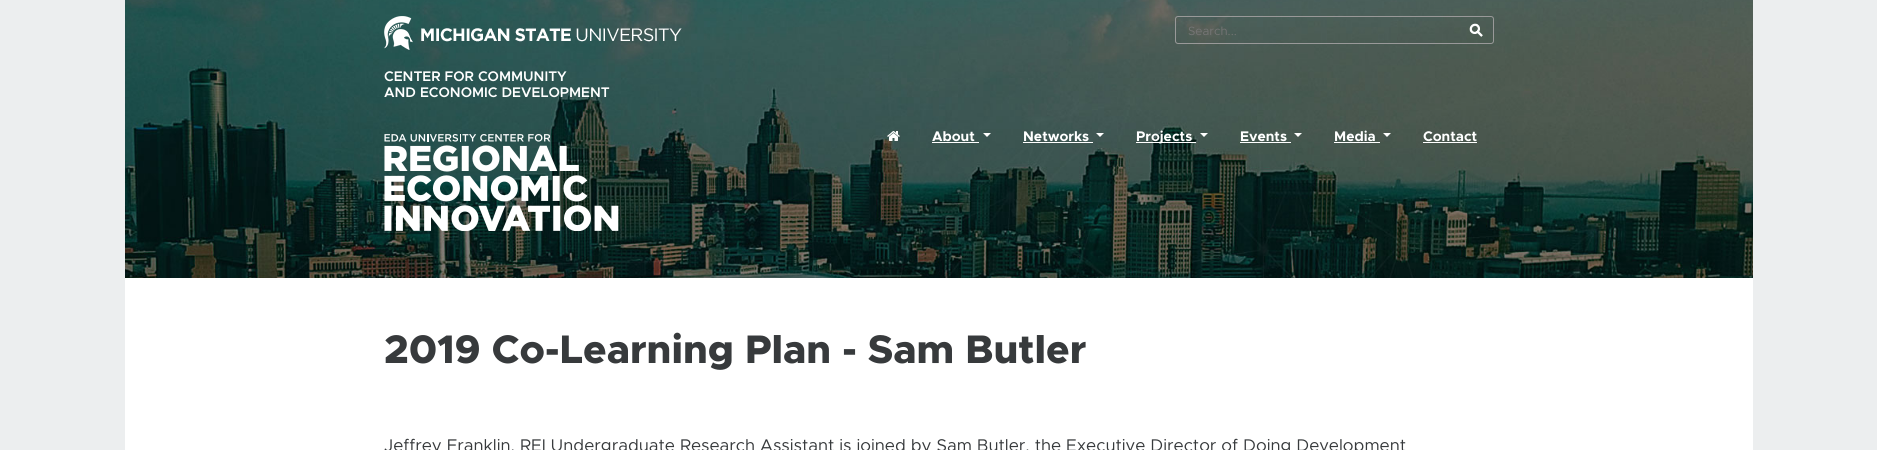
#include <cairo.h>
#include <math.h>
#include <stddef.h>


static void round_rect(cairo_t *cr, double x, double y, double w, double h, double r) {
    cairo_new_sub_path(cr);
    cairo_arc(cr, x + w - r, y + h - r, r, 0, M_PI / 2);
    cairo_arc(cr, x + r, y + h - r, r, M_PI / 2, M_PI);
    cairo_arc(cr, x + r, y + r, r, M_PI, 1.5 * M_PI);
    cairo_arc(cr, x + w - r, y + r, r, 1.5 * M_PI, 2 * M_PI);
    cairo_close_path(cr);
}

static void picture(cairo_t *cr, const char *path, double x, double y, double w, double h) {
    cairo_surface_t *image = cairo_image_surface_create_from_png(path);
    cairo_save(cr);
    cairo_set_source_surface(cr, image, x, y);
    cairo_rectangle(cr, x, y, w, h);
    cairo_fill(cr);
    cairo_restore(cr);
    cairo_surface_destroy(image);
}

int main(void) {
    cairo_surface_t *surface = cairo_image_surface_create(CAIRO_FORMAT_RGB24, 1877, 450);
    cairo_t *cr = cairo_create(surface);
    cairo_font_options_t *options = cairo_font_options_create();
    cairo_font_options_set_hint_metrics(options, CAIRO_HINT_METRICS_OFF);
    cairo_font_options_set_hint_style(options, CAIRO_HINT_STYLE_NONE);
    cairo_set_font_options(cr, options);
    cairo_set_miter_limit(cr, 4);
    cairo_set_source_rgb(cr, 0.925, 0.933, 0.937);
    cairo_paint(cr);
    picture(cr, "img1.png", 125, 0, 1628, 278);
    picture(cr, "img2.png", 384, 16, 298, 34);
    round_rect(cr, 1175.5, 16.5, 318, 27, 2.5);
    cairo_set_source_rgb(cr, 0.6, 0.6, 0.6);
    cairo_set_line_width(cr, 1);
    cairo_stroke(cr);
    cairo_select_font_face(cr, "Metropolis", CAIRO_FONT_SLANT_NORMAL, CAIRO_FONT_WEIGHT_NORMAL);
    cairo_set_font_size(cr, 12);
    cairo_set_source_rgb(cr, 0.459, 0.459, 0.459);
    cairo_move_to(cr, 1188, 35);
    cairo_show_text(cr, "Search...");
    picture(cr, "img3.png", 1469, 23, 14, 14);
    cairo_select_font_face(cr, "Metropolis SemiBold", CAIRO_FONT_SLANT_NORMAL, CAIRO_FONT_WEIGHT_NORMAL);
    cairo_set_font_size(cr, 14);
    cairo_set_source_rgb(cr, 1, 1, 1);
    cairo_move_to(cr, 384, 81);
    cairo_show_text(cr, "CENTER FOR COMMUNITY");
    cairo_move_to(cr, 384, 97);
    cairo_show_text(cr, "AND ECONOMIC DEVELOPMENT");
    picture(cr, "img4.png", 384, 134, 235, 97);
    picture(cr, "img5.png", 887, 131, 13, 10);
    cairo_select_font_face(cr, "Metropolis", CAIRO_FONT_SLANT_NORMAL, CAIRO_FONT_WEIGHT_BOLD);
    cairo_move_to(cr, 932, 141);
    cairo_show_text(cr, "About");
    cairo_rectangle(cr, 932, 142, 47, 1);
    cairo_fill(cr);
    cairo_new_path(cr);
    cairo_move_to(cr, 983, 133);
    cairo_line_to(cr, 991, 133);
    cairo_line_to(cr, 987, 137);
    cairo_close_path(cr);
    cairo_fill(cr);
    cairo_move_to(cr, 1023, 141);
    cairo_show_text(cr, "Networks");
    cairo_rectangle(cr, 1023, 142, 70, 1);
    cairo_fill(cr);
    cairo_new_path(cr);
    cairo_move_to(cr, 1096, 133);
    cairo_line_to(cr, 1104, 133);
    cairo_line_to(cr, 1100, 137);
    cairo_close_path(cr);
    cairo_fill(cr);
    cairo_rectangle(cr, 1136, 142, 60, 1);
    cairo_fill(cr);
    cairo_move_to(cr, 1136, 141);
    cairo_show_text(cr, "Projects");
    cairo_new_path(cr);
    cairo_move_to(cr, 1200, 133);
    cairo_line_to(cr, 1208, 133);
    cairo_line_to(cr, 1204, 137);
    cairo_close_path(cr);
    cairo_fill(cr);
    cairo_move_to(cr, 1240, 141);
    cairo_show_text(cr, "Events");
    cairo_rectangle(cr, 1240, 142, 51, 1);
    cairo_fill(cr);
    cairo_new_path(cr);
    cairo_move_to(cr, 1294, 133);
    cairo_line_to(cr, 1302, 133);
    cairo_line_to(cr, 1298, 137);
    cairo_close_path(cr);
    cairo_fill(cr);
    cairo_move_to(cr, 1334, 141);
    cairo_show_text(cr, "Media");
    cairo_rectangle(cr, 1334, 142, 46, 1);
    cairo_fill(cr);
    cairo_new_path(cr);
    cairo_move_to(cr, 1383, 133);
    cairo_line_to(cr, 1391, 133);
    cairo_line_to(cr, 1387, 137);
    cairo_close_path(cr);
    cairo_fill(cr);
    cairo_move_to(cr, 1423, 141);
    cairo_show_text(cr, "Contact");
    cairo_rectangle(cr, 1423, 142, 54, 1);
    cairo_fill(cr);
    cairo_rectangle(cr, 125, 278, 1628, 172);
    cairo_fill(cr);
    cairo_select_font_face(cr, "Metropolis ExtraBold", CAIRO_FONT_SLANT_NORMAL, CAIRO_FONT_WEIGHT_NORMAL);
    cairo_set_font_size(cr, 40);
    cairo_set_source_rgb(cr, 0.216, 0.227, 0.235);
    cairo_move_to(cr, 384, 363);
    cairo_show_text(cr, "2019 Co-Learning Plan - Sam Butler");
    cairo_select_font_face(cr, "Metropolis", CAIRO_FONT_SLANT_NORMAL, CAIRO_FONT_WEIGHT_NORMAL);
    cairo_set_font_size(cr, 17);
    cairo_move_to(cr, 384, 451);
    cairo_show_text(cr, "Jeffrey Franklin, REI Undergraduate Research Assistant is joined by Sam Butler, the Executive Director of Doing Development");
    cairo_surface_write_to_png(surface, "page.png");
    cairo_font_options_destroy(options);
    cairo_destroy(cr);
    cairo_surface_destroy(surface);
    return 0;
}
